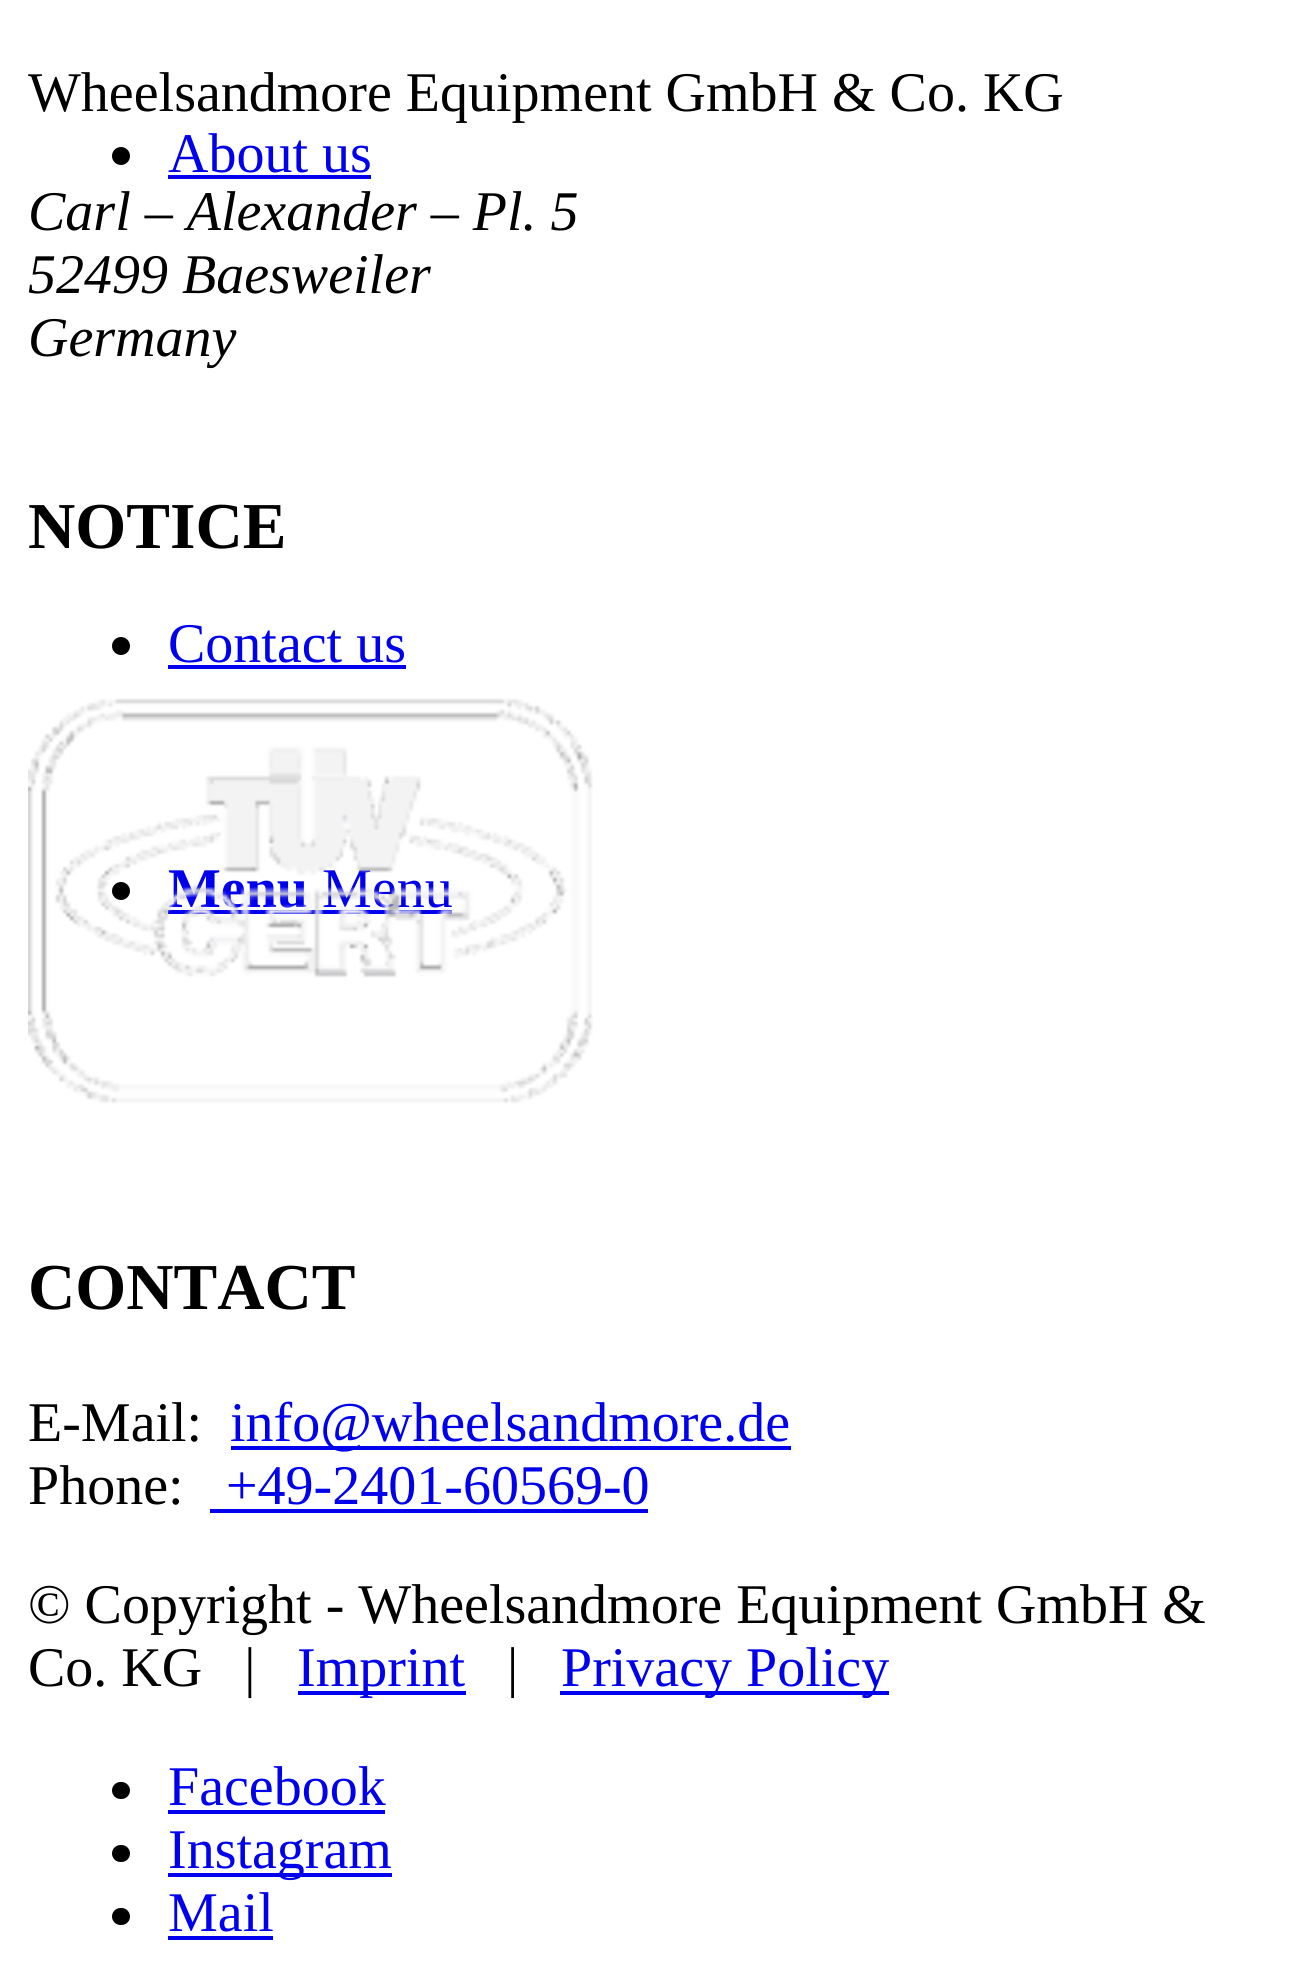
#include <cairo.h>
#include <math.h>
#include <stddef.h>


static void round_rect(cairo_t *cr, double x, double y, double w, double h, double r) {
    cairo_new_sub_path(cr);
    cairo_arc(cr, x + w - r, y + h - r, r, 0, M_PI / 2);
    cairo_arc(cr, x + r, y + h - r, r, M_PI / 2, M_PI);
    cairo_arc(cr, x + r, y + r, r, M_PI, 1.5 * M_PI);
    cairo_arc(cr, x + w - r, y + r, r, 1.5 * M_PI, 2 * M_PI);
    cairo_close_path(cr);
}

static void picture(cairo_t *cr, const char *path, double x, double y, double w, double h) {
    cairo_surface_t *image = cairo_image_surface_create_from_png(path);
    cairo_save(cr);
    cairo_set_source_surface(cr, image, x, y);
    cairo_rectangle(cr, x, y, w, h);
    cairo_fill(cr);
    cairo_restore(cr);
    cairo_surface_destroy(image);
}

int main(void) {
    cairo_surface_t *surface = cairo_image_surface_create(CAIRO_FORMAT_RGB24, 1312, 1974);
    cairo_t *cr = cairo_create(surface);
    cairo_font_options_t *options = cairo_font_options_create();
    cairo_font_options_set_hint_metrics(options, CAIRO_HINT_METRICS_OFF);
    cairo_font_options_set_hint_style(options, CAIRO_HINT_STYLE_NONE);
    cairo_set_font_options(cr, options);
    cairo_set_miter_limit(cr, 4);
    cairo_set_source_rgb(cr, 1, 1, 1);
    cairo_paint(cr);
    cairo_select_font_face(cr, "Liberation Serif", CAIRO_FONT_SLANT_NORMAL, CAIRO_FONT_WEIGHT_NORMAL);
    cairo_set_font_size(cr, 56);
    cairo_set_source_rgb(cr, 0, 0, 0);
    cairo_move_to(cr, 28, 111);
    cairo_show_text(cr, "Wheelsandmore Equipment GmbH & Co. KG");
    cairo_select_font_face(cr, "Liberation Serif", CAIRO_FONT_SLANT_ITALIC, CAIRO_FONT_WEIGHT_NORMAL);
    cairo_move_to(cr, 28, 230);
    cairo_show_text(cr, "Carl – Alexander – Pl. 5");
    cairo_move_to(cr, 28, 293);
    cairo_show_text(cr, "52499 Baesweiler");
    cairo_move_to(cr, 28, 356);
    cairo_show_text(cr, "Germany");
    cairo_select_font_face(cr, "Liberation Serif", CAIRO_FONT_SLANT_NORMAL, CAIRO_FONT_WEIGHT_BOLD);
    cairo_set_font_size(cr, 65.5);
    cairo_move_to(cr, 28, 548);
    cairo_show_text(cr, "NOTICE");
    cairo_new_path(cr);
    cairo_arc(cr, 121, 891, 9, 0, 2 * M_PI);
    cairo_fill(cr);
    cairo_set_font_size(cr, 56);
    cairo_set_source_rgb(cr, 0, 0, 0.933);
    cairo_move_to(cr, 168, 907);
    cairo_show_text(cr, "Menu");
    cairo_rectangle(cr, 168, 910, 284, 4);
    cairo_fill(cr);
    cairo_select_font_face(cr, "Liberation Serif", CAIRO_FONT_SLANT_NORMAL, CAIRO_FONT_WEIGHT_NORMAL);
    cairo_move_to(cr, 322, 907);
    cairo_show_text(cr, "Menu");
    picture(cr, "img1.png", 28, 698, 565, 406);
    cairo_select_font_face(cr, "Liberation Serif", CAIRO_FONT_SLANT_NORMAL, CAIRO_FONT_WEIGHT_BOLD);
    cairo_set_font_size(cr, 65.5);
    cairo_set_source_rgb(cr, 0, 0, 0);
    cairo_move_to(cr, 28, 1309);
    cairo_show_text(cr, "CONTACT");
    cairo_select_font_face(cr, "Liberation Serif", CAIRO_FONT_SLANT_NORMAL, CAIRO_FONT_WEIGHT_NORMAL);
    cairo_set_font_size(cr, 56);
    cairo_move_to(cr, 28, 1441);
    cairo_show_text(cr, "E-Mail:");
    cairo_set_source_rgb(cr, 0, 0, 0.933);
    cairo_rectangle(cr, 231, 1446, 560, 4);
    cairo_fill(cr);
    cairo_move_to(cr, 230, 1441);
    cairo_show_text(cr, "info@wheelsandmore.de");
    cairo_set_source_rgb(cr, 0, 0, 0);
    cairo_move_to(cr, 28, 1504);
    cairo_show_text(cr, "Phone:");
    cairo_set_source_rgb(cr, 0, 0, 0.933);
    cairo_move_to(cr, 226, 1504);
    cairo_show_text(cr, "+49-2401-60569-0");
    cairo_rectangle(cr, 210, 1509, 438, 4);
    cairo_fill(cr);
    cairo_set_source_rgb(cr, 0, 0, 0);
    cairo_move_to(cr, 28, 1623);
    cairo_show_text(cr, "© Copyright - Wheelsandmore Equipment GmbH &");
    cairo_move_to(cr, 28, 1686);
    cairo_show_text(cr, "Co. KG   |");
    cairo_set_source_rgb(cr, 0, 0, 0.933);
    cairo_rectangle(cr, 298, 1691, 168, 4);
    cairo_fill(cr);
    cairo_move_to(cr, 297, 1686);
    cairo_show_text(cr, "Imprint");
    cairo_set_source_rgb(cr, 0, 0, 0);
    cairo_move_to(cr, 507, 1686);
    cairo_show_text(cr, "|");
    cairo_set_source_rgb(cr, 0, 0, 0.933);
    cairo_rectangle(cr, 560, 1691, 329, 4);
    cairo_fill(cr);
    cairo_move_to(cr, 561, 1686);
    cairo_show_text(cr, "Privacy Policy");
    cairo_set_source_rgb(cr, 0, 0, 0);
    round_rect(cr, 112, 1782, 18, 17, 8.5);
    cairo_fill(cr);
    cairo_set_source_rgb(cr, 0, 0, 0.933);
    cairo_move_to(cr, 168, 1805);
    cairo_show_text(cr, "Facebook");
    cairo_rectangle(cr, 168, 1810, 217, 4);
    cairo_fill(cr);
    cairo_set_source_rgb(cr, 0, 0, 0);
    round_rect(cr, 112, 1845, 18, 17, 8.5);
    cairo_fill(cr);
    cairo_set_source_rgb(cr, 0, 0, 0.933);
    cairo_rectangle(cr, 168, 1873, 224, 4);
    cairo_fill(cr);
    cairo_move_to(cr, 168, 1868);
    cairo_show_text(cr, "Instagram");
    cairo_set_source_rgb(cr, 0, 0, 0);
    round_rect(cr, 112, 1908, 18, 17, 8.5);
    cairo_fill(cr);
    cairo_set_source_rgb(cr, 0, 0, 0.933);
    cairo_move_to(cr, 168, 1931);
    cairo_show_text(cr, "Mail");
    cairo_rectangle(cr, 168, 1936, 105, 4);
    cairo_fill(cr);
    cairo_set_source_rgb(cr, 0, 0, 0);
    cairo_arc(cr, 121, 156, 9, 0, 2 * M_PI);
    cairo_fill(cr);
    cairo_set_source_rgb(cr, 0, 0, 0.933);
    cairo_move_to(cr, 168, 172);
    cairo_show_text(cr, "About us");
    cairo_rectangle(cr, 168, 175, 203, 4);
    cairo_fill(cr);
    cairo_set_source_rgb(cr, 0, 0, 0);
    cairo_arc(cr, 121, 646, 9, 0, 2 * M_PI);
    cairo_fill(cr);
    cairo_set_source_rgb(cr, 0, 0, 0.933);
    cairo_move_to(cr, 168, 662);
    cairo_show_text(cr, "Contact us");
    cairo_rectangle(cr, 168, 665, 238, 4);
    cairo_fill(cr);
    cairo_surface_write_to_png(surface, "page.png");
    cairo_font_options_destroy(options);
    cairo_destroy(cr);
    cairo_surface_destroy(surface);
    return 0;
}
